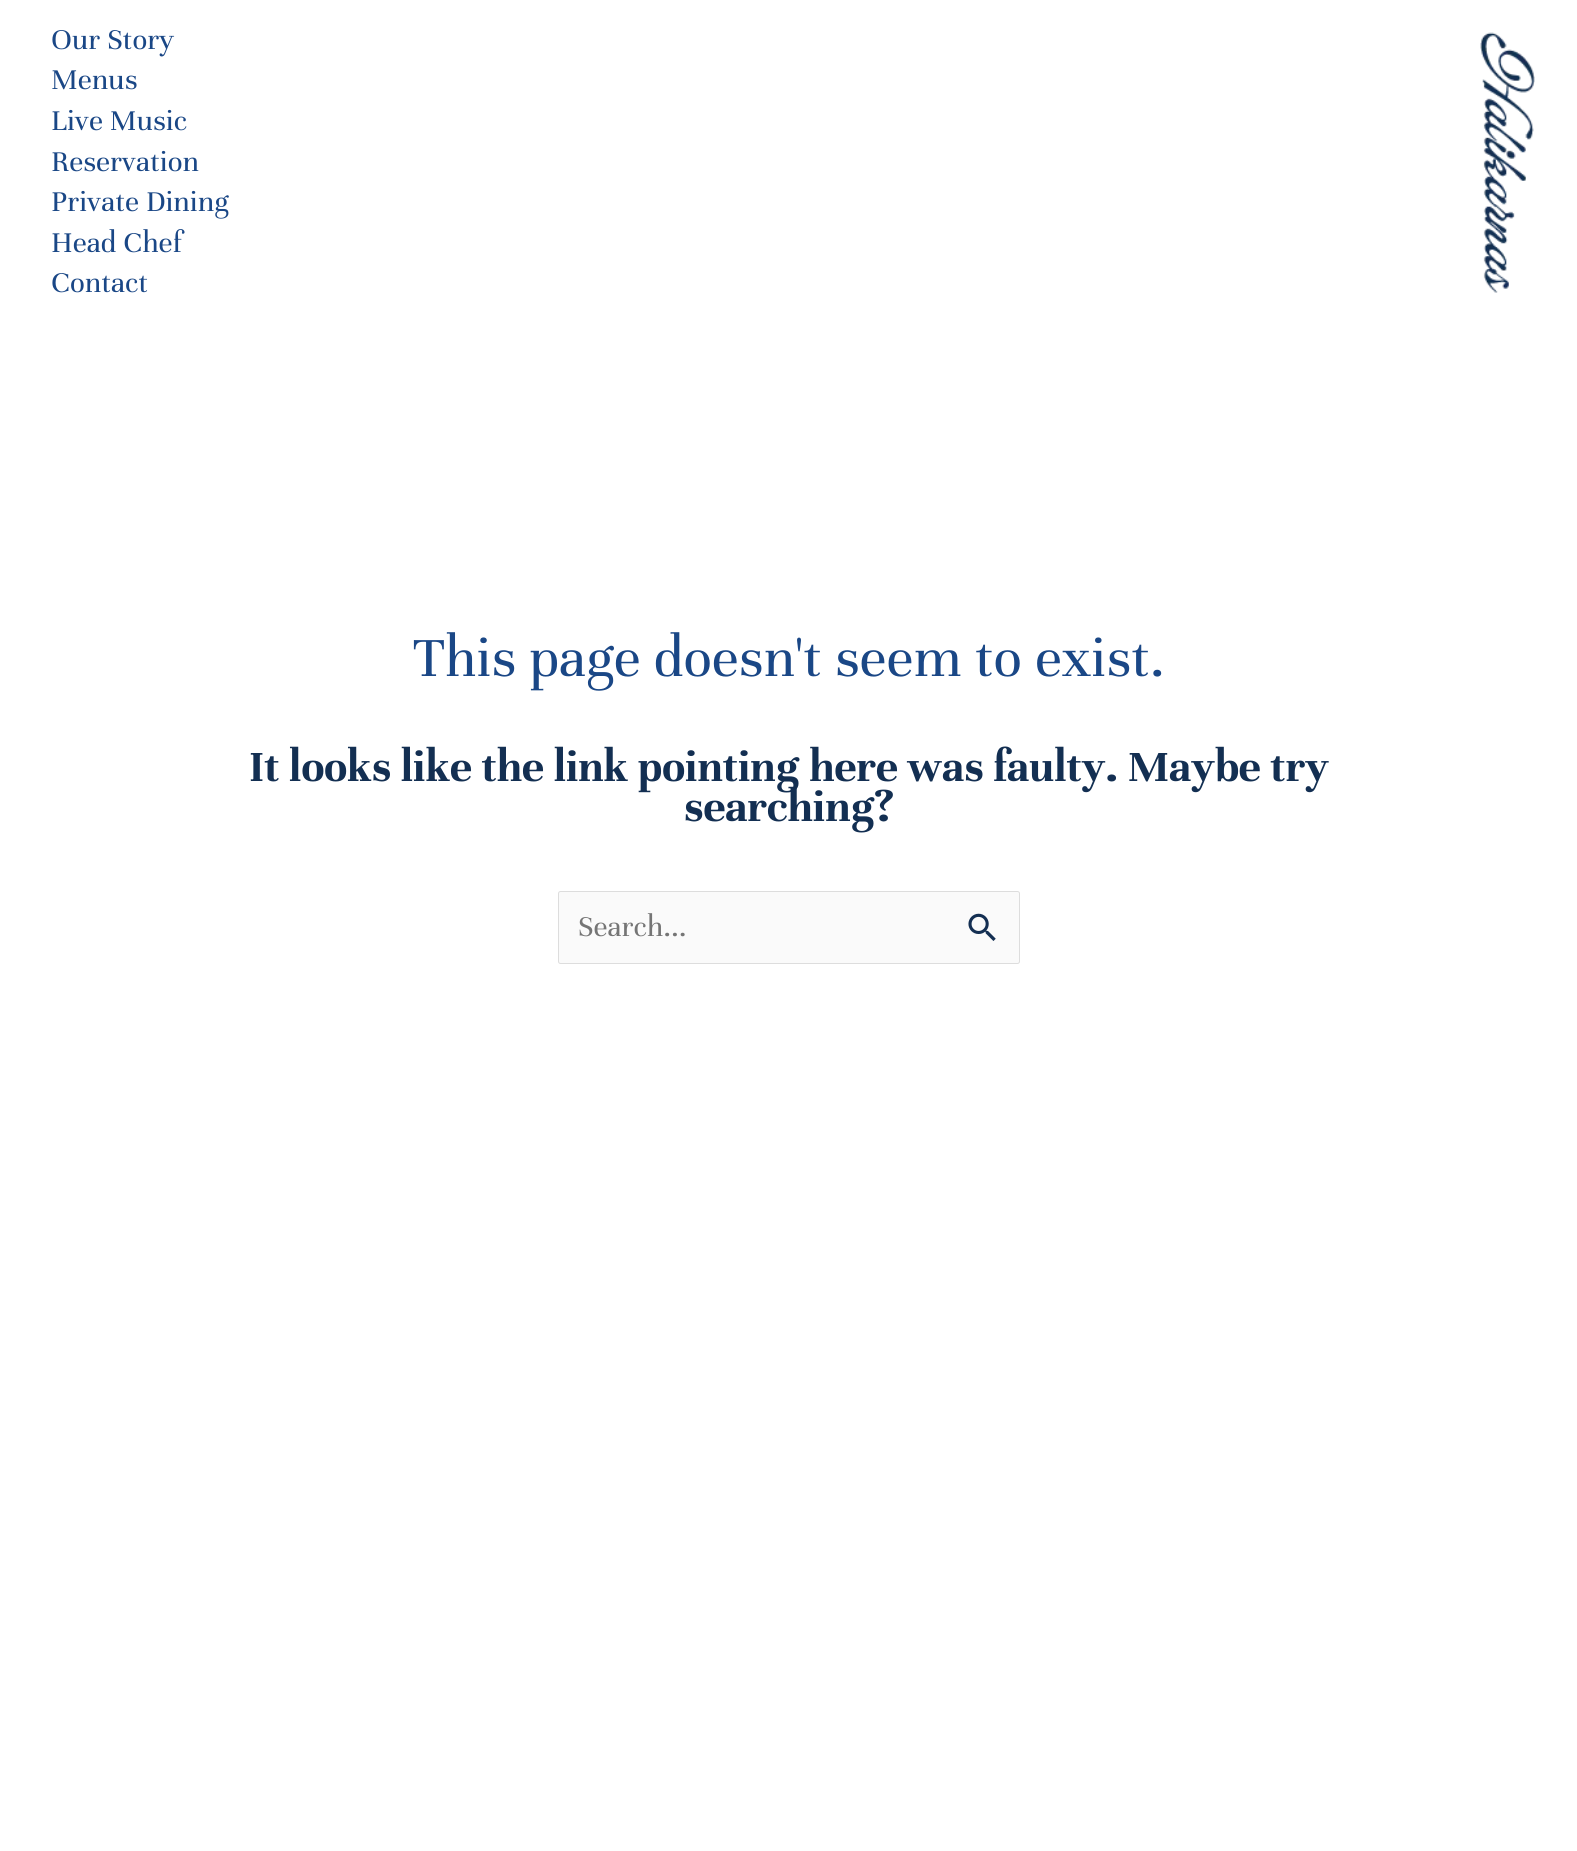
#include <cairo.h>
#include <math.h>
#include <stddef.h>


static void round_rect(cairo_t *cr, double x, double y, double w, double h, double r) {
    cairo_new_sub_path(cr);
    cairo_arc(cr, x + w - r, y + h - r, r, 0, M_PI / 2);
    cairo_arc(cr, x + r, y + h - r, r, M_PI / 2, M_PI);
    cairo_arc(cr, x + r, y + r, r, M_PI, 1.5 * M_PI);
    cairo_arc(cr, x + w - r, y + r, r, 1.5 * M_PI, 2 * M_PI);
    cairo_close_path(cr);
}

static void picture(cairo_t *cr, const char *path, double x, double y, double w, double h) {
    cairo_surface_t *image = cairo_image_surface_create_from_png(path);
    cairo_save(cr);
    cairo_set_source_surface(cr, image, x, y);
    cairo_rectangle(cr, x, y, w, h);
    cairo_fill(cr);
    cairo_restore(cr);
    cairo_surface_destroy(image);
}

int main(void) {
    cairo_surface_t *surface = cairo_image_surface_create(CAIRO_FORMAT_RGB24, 1577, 1851);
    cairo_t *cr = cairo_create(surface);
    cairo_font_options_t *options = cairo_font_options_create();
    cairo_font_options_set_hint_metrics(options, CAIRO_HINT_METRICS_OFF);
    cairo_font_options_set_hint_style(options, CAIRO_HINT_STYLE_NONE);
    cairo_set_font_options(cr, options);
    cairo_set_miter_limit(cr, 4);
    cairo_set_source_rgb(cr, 1, 1, 1);
    cairo_paint(cr);
    cairo_select_font_face(cr, "Unna", CAIRO_FONT_SLANT_NORMAL, CAIRO_FONT_WEIGHT_NORMAL);
    cairo_set_font_size(cr, 31.25);
    cairo_set_source_rgb(cr, 0.102, 0.278, 0.525);
    cairo_move_to(cr, 51, 49);
    cairo_show_text(cr, "Our Story");
    cairo_move_to(cr, 51, 89);
    cairo_show_text(cr, "Menus");
    cairo_move_to(cr, 51, 130);
    cairo_show_text(cr, "Live Music");
    cairo_move_to(cr, 51, 171);
    cairo_show_text(cr, "Reservation");
    cairo_move_to(cr, 51, 211);
    cairo_show_text(cr, "Private Dining");
    cairo_move_to(cr, 51, 252);
    cairo_show_text(cr, "Head Chef");
    cairo_move_to(cr, 51, 292);
    cairo_show_text(cr, "Contact");
    picture(cr, "img1.png", 1480, 32, 55, 261);
    cairo_set_font_size(cr, 60);
    cairo_move_to(cr, 413, 676);
    cairo_show_text(cr, "This page doesn't seem to exist.");
    cairo_select_font_face(cr, "Unna", CAIRO_FONT_SLANT_NORMAL, CAIRO_FONT_WEIGHT_BOLD);
    cairo_set_font_size(cr, 46.9);
    cairo_set_source_rgb(cr, 0.078, 0.184, 0.322);
    cairo_move_to(cr, 249, 781);
    cairo_show_text(cr, "It looks like the link pointing here was faulty. Maybe try");
    cairo_move_to(cr, 684, 821);
    cairo_show_text(cr, "searching?");
    cairo_set_source_rgb(cr, 0.98, 0.98, 0.98);
    round_rect(cr, 558.5, 891.5, 461, 72, 2);
    cairo_fill_preserve(cr);
    cairo_set_source_rgb(cr, 0.867, 0.867, 0.867);
    cairo_set_line_width(cr, 1);
    cairo_stroke(cr);
    cairo_select_font_face(cr, "Unna", CAIRO_FONT_SLANT_NORMAL, CAIRO_FONT_WEIGHT_NORMAL);
    cairo_set_font_size(cr, 31.25);
    cairo_set_source_rgb(cr, 0.459, 0.459, 0.459);
    cairo_move_to(cr, 578, 936);
    cairo_show_text(cr, "Search...");
    picture(cr, "img2.png", 968, 913, 28, 28);
    cairo_surface_write_to_png(surface, "page.png");
    cairo_font_options_destroy(options);
    cairo_destroy(cr);
    cairo_surface_destroy(surface);
    return 0;
}
